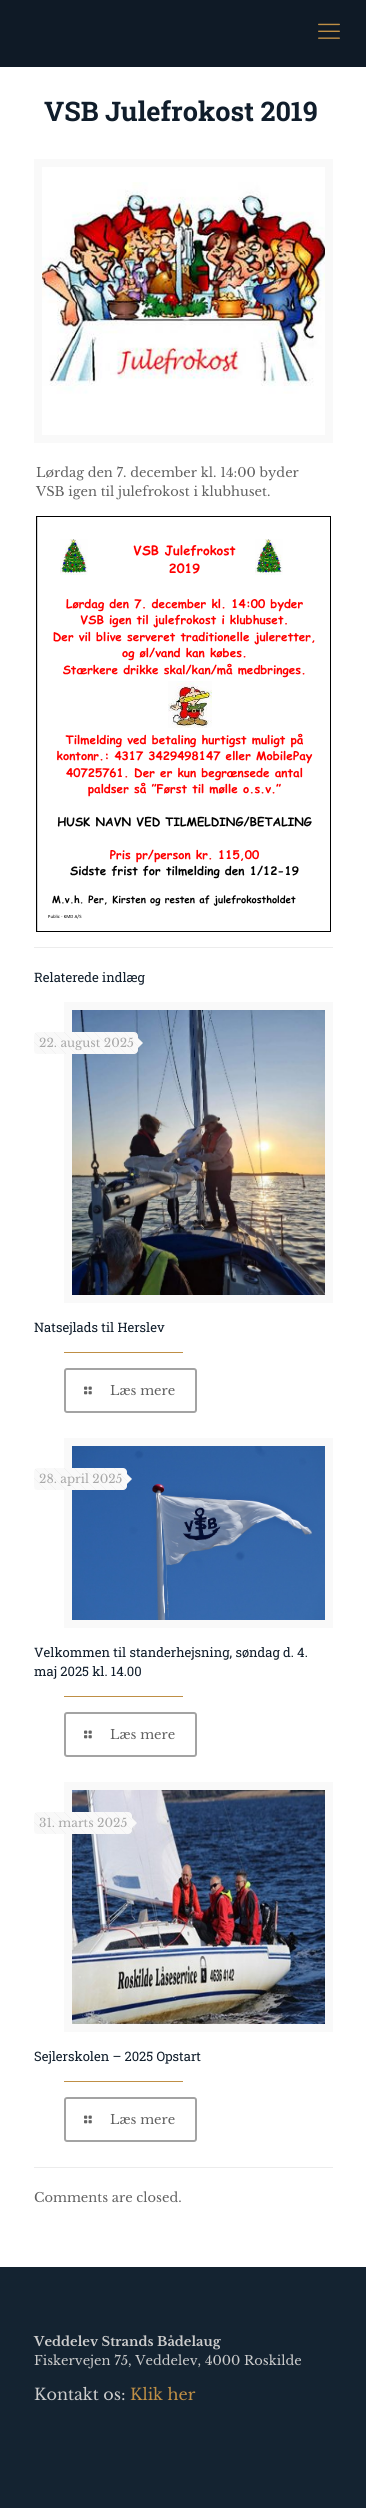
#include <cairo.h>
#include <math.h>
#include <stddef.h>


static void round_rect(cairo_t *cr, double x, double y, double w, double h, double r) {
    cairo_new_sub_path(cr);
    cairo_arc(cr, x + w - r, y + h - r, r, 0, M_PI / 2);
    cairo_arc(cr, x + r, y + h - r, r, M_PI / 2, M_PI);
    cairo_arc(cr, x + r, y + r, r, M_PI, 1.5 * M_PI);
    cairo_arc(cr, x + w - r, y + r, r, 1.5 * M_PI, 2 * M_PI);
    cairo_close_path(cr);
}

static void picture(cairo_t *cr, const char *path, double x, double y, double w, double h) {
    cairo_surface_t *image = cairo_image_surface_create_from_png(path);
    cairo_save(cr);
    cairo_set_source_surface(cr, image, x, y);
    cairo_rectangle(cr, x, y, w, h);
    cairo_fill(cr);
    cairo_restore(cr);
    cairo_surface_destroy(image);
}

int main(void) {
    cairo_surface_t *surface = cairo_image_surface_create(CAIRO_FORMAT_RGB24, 366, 2508);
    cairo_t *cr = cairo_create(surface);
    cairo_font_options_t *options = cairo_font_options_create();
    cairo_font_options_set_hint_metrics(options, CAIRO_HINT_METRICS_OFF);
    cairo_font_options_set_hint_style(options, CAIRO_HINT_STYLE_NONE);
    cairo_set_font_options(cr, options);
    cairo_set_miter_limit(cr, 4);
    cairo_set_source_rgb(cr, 1, 1, 1);
    cairo_paint(cr);
    cairo_set_source_rgb(cr, 0.059, 0.102, 0.149);
    cairo_rectangle(cr, 0, 0, 366, 67);
    cairo_fill(cr);
    picture(cr, "img1.png", 318, 23, 22, 16);
    cairo_select_font_face(cr, "Roboto Slab", CAIRO_FONT_SLANT_NORMAL, CAIRO_FONT_WEIGHT_BOLD);
    cairo_set_font_size(cr, 27);
    cairo_set_source_rgb(cr, 0.063, 0.114, 0.169);
    cairo_move_to(cr, 44, 121);
    cairo_show_text(cr, "VSB Julefrokost 2019");
    cairo_rectangle(cr, 38, 163, 291, 276);
    cairo_set_source_rgb(cr, 0.973, 0.973, 0.973);
    cairo_set_line_width(cr, 8);
    cairo_stroke(cr);
    picture(cr, "img2.png", 42, 182, 283, 212);
    cairo_select_font_face(cr, "Libre Baskerville", CAIRO_FONT_SLANT_NORMAL, CAIRO_FONT_WEIGHT_NORMAL);
    cairo_set_font_size(cr, 13);
    cairo_set_source_rgb(cr, 0.384, 0.384, 0.384);
    cairo_move_to(cr, 36, 477);
    cairo_show_text(cr, "Lørdag den 7. december kl. 14:00 byder");
    cairo_move_to(cr, 36, 496);
    cairo_show_text(cr, "VSB igen til julefrokost i klubhuset.");
    cairo_set_source_rgb(cr, 0.827, 0.827, 0.827);
    cairo_rectangle(cr, 37, 517, 1, 414);
    cairo_fill(cr);
    cairo_rectangle(cr, 36.5, 516.5, 294, 415);
    cairo_set_source_rgb(cr, 0, 0, 0);
    cairo_set_line_width(cr, 1);
    cairo_stroke(cr);
    picture(cr, "img3.png", 48, 539, 267, 380);
    cairo_set_source_rgb(cr, 0.922, 0.922, 0.922);
    cairo_rectangle(cr, 34, 947, 299, 1);
    cairo_fill(cr);
    cairo_select_font_face(cr, "Roboto Slab", CAIRO_FONT_SLANT_NORMAL, CAIRO_FONT_WEIGHT_NORMAL);
    cairo_set_source_rgb(cr, 0.063, 0.114, 0.169);
    cairo_move_to(cr, 34, 982);
    cairo_show_text(cr, "Relaterede indlæg");
    cairo_rectangle(cr, 68, 1006, 261, 293);
    cairo_set_source_rgb(cr, 0.973, 0.973, 0.973);
    cairo_set_line_width(cr, 8);
    cairo_stroke(cr);
    picture(cr, "img4.png", 72, 1010, 253, 285);
    round_rect(cr, 34, 1032, 104, 22, 4);
    cairo_fill(cr);
    picture(cr, "img5.png", 34, 1032, 104, 22);
    cairo_select_font_face(cr, "Libre Baskerville", CAIRO_FONT_SLANT_NORMAL, CAIRO_FONT_WEIGHT_NORMAL);
    cairo_set_font_size(cr, 12);
    cairo_set_source_rgb(cr, 0.659, 0.659, 0.659);
    cairo_move_to(cr, 39, 1047);
    cairo_show_text(cr, "22. august 2025");
    cairo_set_source_rgb(cr, 0.973, 0.973, 0.973);
    cairo_new_path(cr);
    cairo_move_to(cr, 138, 1048);
    cairo_line_to(cr, 138, 1038);
    cairo_line_to(cr, 143, 1043);
    cairo_close_path(cr);
    cairo_fill(cr);
    cairo_select_font_face(cr, "Roboto Slab", CAIRO_FONT_SLANT_NORMAL, CAIRO_FONT_WEIGHT_NORMAL);
    cairo_set_font_size(cr, 13);
    cairo_set_source_rgb(cr, 0.063, 0.114, 0.169);
    cairo_move_to(cr, 34, 1332);
    cairo_show_text(cr, "Natsejlads til Herslev");
    cairo_set_source_rgb(cr, 0.749, 0.561, 0.271);
    cairo_rectangle(cr, 64, 1352, 119, 1);
    cairo_fill(cr);
    round_rect(cr, 65, 1369, 131, 43, 2);
    cairo_set_source_rgb(cr, 0.639, 0.639, 0.639);
    cairo_set_line_width(cr, 2);
    cairo_stroke(cr);
    picture(cr, "img6.png", 84, 1386, 8, 9);
    cairo_select_font_face(cr, "Libre Baskerville", CAIRO_FONT_SLANT_NORMAL, CAIRO_FONT_WEIGHT_NORMAL);
    cairo_set_source_rgb(cr, 0.384, 0.384, 0.384);
    cairo_move_to(cr, 110, 1395);
    cairo_show_text(cr, "Læs mere");
    cairo_rectangle(cr, 68, 1442, 261, 182);
    cairo_set_source_rgb(cr, 0.973, 0.973, 0.973);
    cairo_set_line_width(cr, 8);
    cairo_stroke(cr);
    picture(cr, "img7.png", 72, 1446, 253, 174);
    round_rect(cr, 34, 1468, 93, 22, 4);
    cairo_fill(cr);
    picture(cr, "img8.png", 34, 1468, 93, 22);
    cairo_set_font_size(cr, 12);
    cairo_set_source_rgb(cr, 0.659, 0.659, 0.659);
    cairo_move_to(cr, 39, 1483);
    cairo_show_text(cr, "28. april 2025");
    cairo_set_source_rgb(cr, 0.973, 0.973, 0.973);
    cairo_new_path(cr);
    cairo_move_to(cr, 127, 1484);
    cairo_line_to(cr, 127, 1474);
    cairo_line_to(cr, 132, 1479);
    cairo_close_path(cr);
    cairo_fill(cr);
    cairo_select_font_face(cr, "Roboto Slab", CAIRO_FONT_SLANT_NORMAL, CAIRO_FONT_WEIGHT_NORMAL);
    cairo_set_font_size(cr, 13);
    cairo_set_source_rgb(cr, 0.063, 0.114, 0.169);
    cairo_move_to(cr, 34, 1657);
    cairo_show_text(cr, "Velkommen til standerhejsning, søndag d. 4.");
    cairo_move_to(cr, 34, 1676);
    cairo_show_text(cr, "maj 2025 kl. 14.00");
    cairo_set_source_rgb(cr, 0.749, 0.561, 0.271);
    cairo_rectangle(cr, 64, 1696, 119, 1);
    cairo_fill(cr);
    round_rect(cr, 65, 1713, 131, 43, 2);
    cairo_set_source_rgb(cr, 0.639, 0.639, 0.639);
    cairo_set_line_width(cr, 2);
    cairo_stroke(cr);
    picture(cr, "img6.png", 84, 1730, 8, 9);
    cairo_select_font_face(cr, "Libre Baskerville", CAIRO_FONT_SLANT_NORMAL, CAIRO_FONT_WEIGHT_NORMAL);
    cairo_set_source_rgb(cr, 0.384, 0.384, 0.384);
    cairo_move_to(cr, 110, 1739);
    cairo_show_text(cr, "Læs mere");
    cairo_rectangle(cr, 68, 1786, 261, 242);
    cairo_set_source_rgb(cr, 0.973, 0.973, 0.973);
    cairo_set_line_width(cr, 8);
    cairo_stroke(cr);
    picture(cr, "img9.png", 72, 1790, 253, 234);
    round_rect(cr, 34, 1812, 98, 22, 4);
    cairo_fill(cr);
    picture(cr, "img10.png", 34, 1812, 98, 22);
    cairo_set_font_size(cr, 12);
    cairo_set_source_rgb(cr, 0.659, 0.659, 0.659);
    cairo_move_to(cr, 39, 1827);
    cairo_show_text(cr, "31. marts 2025");
    cairo_set_source_rgb(cr, 0.973, 0.973, 0.973);
    cairo_new_path(cr);
    cairo_move_to(cr, 132, 1828);
    cairo_line_to(cr, 132, 1818);
    cairo_line_to(cr, 137, 1823);
    cairo_close_path(cr);
    cairo_fill(cr);
    cairo_select_font_face(cr, "Roboto Slab", CAIRO_FONT_SLANT_NORMAL, CAIRO_FONT_WEIGHT_NORMAL);
    cairo_set_font_size(cr, 13);
    cairo_set_source_rgb(cr, 0.063, 0.114, 0.169);
    cairo_move_to(cr, 34, 2061);
    cairo_show_text(cr, "Sejlerskolen – 2025 Opstart");
    cairo_set_source_rgb(cr, 0.749, 0.561, 0.271);
    cairo_rectangle(cr, 64, 2081, 119, 1);
    cairo_fill(cr);
    round_rect(cr, 65, 2098, 131, 43, 2);
    cairo_set_source_rgb(cr, 0.639, 0.639, 0.639);
    cairo_set_line_width(cr, 2);
    cairo_stroke(cr);
    picture(cr, "img6.png", 84, 2115, 8, 9);
    cairo_select_font_face(cr, "Libre Baskerville", CAIRO_FONT_SLANT_NORMAL, CAIRO_FONT_WEIGHT_NORMAL);
    cairo_set_source_rgb(cr, 0.384, 0.384, 0.384);
    cairo_move_to(cr, 110, 2124);
    cairo_show_text(cr, "Læs mere");
    cairo_set_source_rgb(cr, 0.922, 0.922, 0.922);
    cairo_rectangle(cr, 34, 2167, 299, 1);
    cairo_fill(cr);
    cairo_set_source_rgb(cr, 0.384, 0.384, 0.384);
    cairo_move_to(cr, 34, 2202);
    cairo_show_text(cr, "Comments are closed.");
    cairo_set_source_rgb(cr, 0.082, 0.137, 0.192);
    cairo_rectangle(cr, 0, 2267, 366, 241);
    cairo_fill(cr);
    cairo_select_font_face(cr, "Libre Baskerville", CAIRO_FONT_SLANT_NORMAL, CAIRO_FONT_WEIGHT_BOLD);
    cairo_set_source_rgb(cr, 0.8, 0.8, 0.8);
    cairo_move_to(cr, 34, 2346);
    cairo_show_text(cr, "Veddelev Strands Bådelaug");
    cairo_select_font_face(cr, "Libre Baskerville", CAIRO_FONT_SLANT_NORMAL, CAIRO_FONT_WEIGHT_NORMAL);
    cairo_move_to(cr, 34, 2365);
    cairo_show_text(cr, "Fiskervejen 75, Veddelev, 4000 Roskilde");
    cairo_set_font_size(cr, 16);
    cairo_move_to(cr, 34, 2400);
    cairo_show_text(cr, "Kontakt os:");
    cairo_set_source_rgb(cr, 0.749, 0.561, 0.271);
    cairo_move_to(cr, 130, 2400);
    cairo_show_text(cr, "Klik her");
    cairo_surface_write_to_png(surface, "page.png");
    cairo_font_options_destroy(options);
    cairo_destroy(cr);
    cairo_surface_destroy(surface);
    return 0;
}
